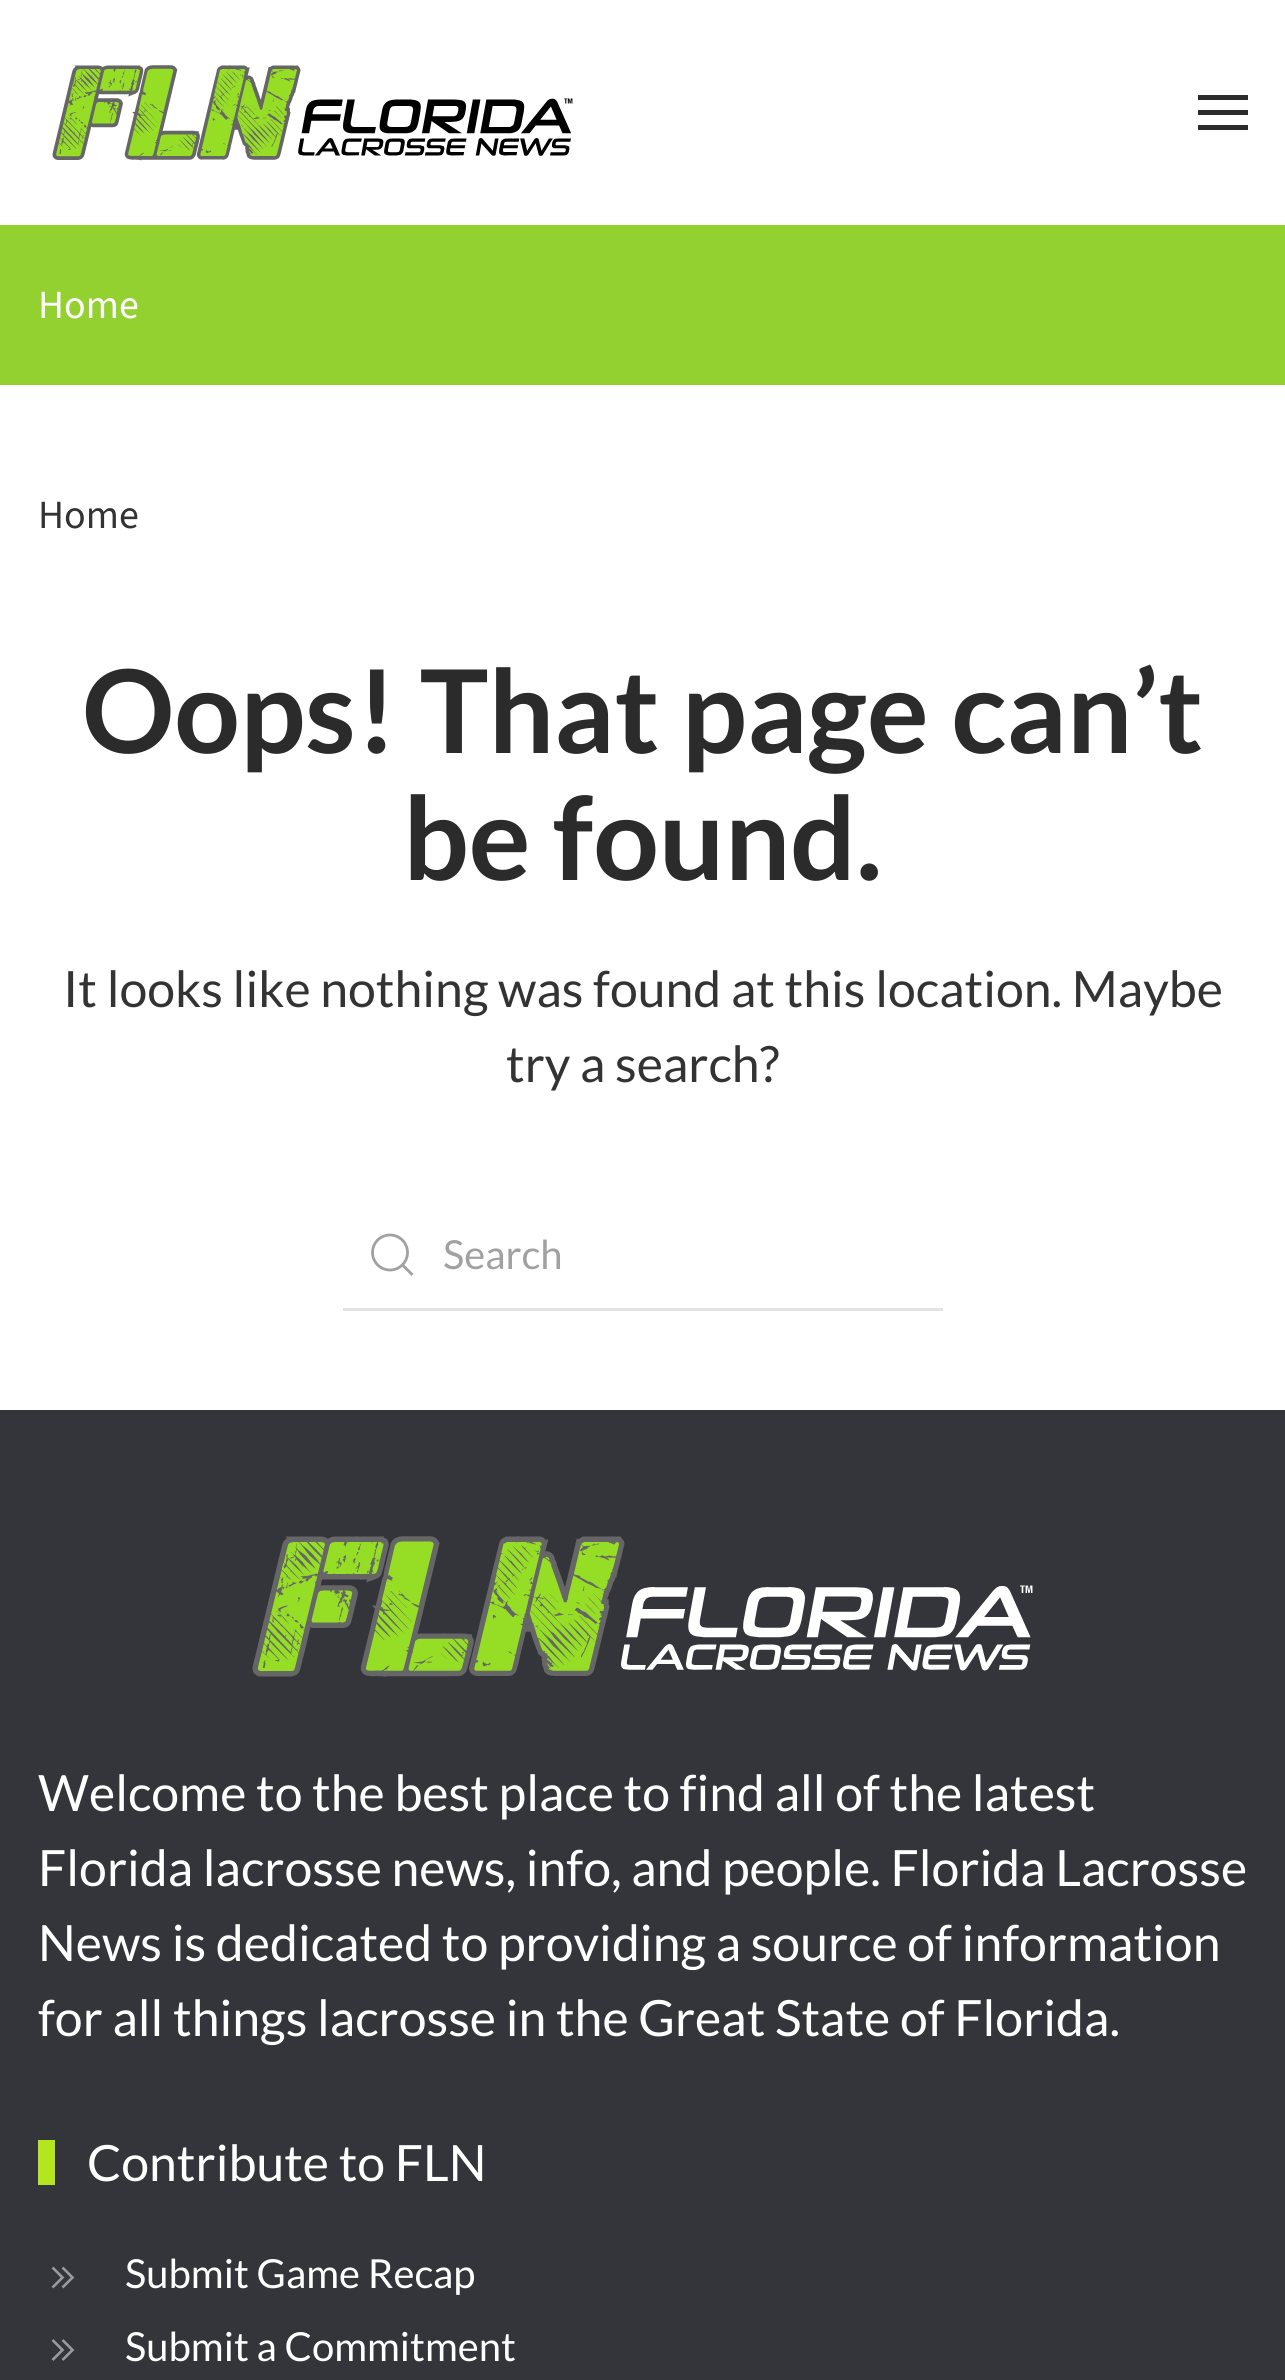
#include <cairo.h>
#include <math.h>
#include <stddef.h>


static void picture(cairo_t *cr, const char *path, double x, double y, double w, double h) {
    cairo_surface_t *image = cairo_image_surface_create_from_png(path);
    cairo_save(cr);
    cairo_set_source_surface(cr, image, x, y);
    cairo_rectangle(cr, x, y, w, h);
    cairo_fill(cr);
    cairo_restore(cr);
    cairo_surface_destroy(image);
}

int main(void) {
    cairo_surface_t *surface = cairo_image_surface_create(CAIRO_FORMAT_RGB24, 1285, 2380);
    cairo_t *cr = cairo_create(surface);
    cairo_font_options_t *options = cairo_font_options_create();
    cairo_font_options_set_hint_metrics(options, CAIRO_HINT_METRICS_OFF);
    cairo_font_options_set_hint_style(options, CAIRO_HINT_STYLE_NONE);
    cairo_set_font_options(cr, options);
    cairo_set_miter_limit(cr, 4);
    cairo_set_source_rgb(cr, 0.573, 0.82, 0.188);
    cairo_paint(cr);
    cairo_set_source_rgb(cr, 1, 1, 1);
    cairo_rectangle(cr, 0, 0, 1285, 225);
    cairo_fill(cr);
    picture(cr, "img1.png", 52, 65, 521, 96);
    cairo_set_source_rgb(cr, 0.169, 0.169, 0.169);
    cairo_rectangle(cr, 1198, 95, 50, 5);
    cairo_fill(cr);
    cairo_rectangle(cr, 1198, 110, 50, 5);
    cairo_fill(cr);
    cairo_rectangle(cr, 1198, 125, 50, 5);
    cairo_fill(cr);
    cairo_select_font_face(cr, "Source Sans 3 ExtraLight", CAIRO_FONT_SLANT_NORMAL, CAIRO_FONT_WEIGHT_NORMAL);
    cairo_set_font_size(cr, 40);
    cairo_set_source_rgb(cr, 1, 1, 1);
    cairo_move_to(cr, 38, 318);
    cairo_show_text(cr, "Home");
    cairo_rectangle(cr, 0, 385, 1285, 1025);
    cairo_fill(cr);
    cairo_set_source_rgb(cr, 0.2, 0.2, 0.2);
    cairo_move_to(cr, 38, 528);
    cairo_show_text(cr, "Home");
    cairo_select_font_face(cr, "Lato", CAIRO_FONT_SLANT_NORMAL, CAIRO_FONT_WEIGHT_BOLD);
    cairo_set_font_size(cr, 115.5);
    cairo_set_source_rgb(cr, 0.169, 0.169, 0.169);
    cairo_move_to(cr, 82, 753);
    cairo_show_text(cr, "Oops! That page can’t");
    cairo_move_to(cr, 403, 880);
    cairo_show_text(cr, "be found.");
    cairo_select_font_face(cr, "Lato", CAIRO_FONT_SLANT_NORMAL, CAIRO_FONT_WEIGHT_NORMAL);
    cairo_set_font_size(cr, 50);
    cairo_set_source_rgb(cr, 0.2, 0.2, 0.2);
    cairo_move_to(cr, 63, 1007);
    cairo_show_text(cr, "It looks like nothing was found at this location. Maybe");
    cairo_move_to(cr, 506, 1082);
    cairo_show_text(cr, "try a search?");
    cairo_new_path(cr);
    cairo_arc(cr, 390, 1252.5, 17.5, 0, 2 * M_PI);
    cairo_set_source_rgb(cr, 0.631, 0.631, 0.631);
    cairo_set_line_width(cr, 2.8);
    cairo_stroke(cr);
    cairo_new_path(cr);
    cairo_move_to(cr, 402.5, 1265);
    cairo_line_to(cr, 412.5, 1275);
    cairo_close_path(cr);
    cairo_stroke(cr);
    cairo_set_source_rgb(cr, 0.886, 0.886, 0.886);
    cairo_rectangle(cr, 343, 1308, 600, 3);
    cairo_fill(cr);
    cairo_set_font_size(cr, 40);
    cairo_set_source_rgb(cr, 0.631, 0.631, 0.631);
    cairo_move_to(cr, 443, 1269);
    cairo_show_text(cr, "Search");
    cairo_set_source_rgb(cr, 0.2, 0.208, 0.231);
    cairo_rectangle(cr, 0, 1410, 1285, 970);
    cairo_fill(cr);
    picture(cr, "img2.png", 252, 1536, 781, 141);
    cairo_set_font_size(cr, 50);
    cairo_set_source_rgb(cr, 1, 1, 1);
    cairo_move_to(cr, 38, 1811);
    cairo_show_text(cr, "Welcome to the best place to find all of the latest");
    cairo_move_to(cr, 38, 1886);
    cairo_show_text(cr, "Florida lacrosse news, info, and people. Florida Lacrosse");
    cairo_move_to(cr, 38, 1961);
    cairo_show_text(cr, "News is dedicated to providing a source of information");
    cairo_move_to(cr, 38, 2036);
    cairo_show_text(cr, "for all things lacrosse in the Great State of Florida.");
    cairo_set_source_rgb(cr, 0.706, 0.902, 0.122);
    cairo_rectangle(cr, 38, 2140, 17, 45);
    cairo_fill(cr);
    cairo_set_source_rgb(cr, 1, 1, 1);
    cairo_move_to(cr, 87, 2181);
    cairo_show_text(cr, "Contribute to FLN");
    cairo_new_path(cr);
    cairo_move_to(cr, 62.5, 2267.5);
    cairo_line_to(cr, 72.5, 2277.5);
    cairo_line_to(cr, 62.5, 2287.5);
    cairo_move_to(cr, 52.5, 2267.5);
    cairo_line_to(cr, 62.5, 2277.5);
    cairo_line_to(cr, 52.5, 2287.5);
    cairo_set_source_rgb(cr, 0.6, 0.604, 0.616);
    cairo_set_line_width(cr, 2.6);
    cairo_stroke(cr);
    cairo_set_font_size(cr, 40);
    cairo_set_source_rgb(cr, 1, 1, 1);
    cairo_move_to(cr, 125, 2288);
    cairo_show_text(cr, "Submit Game Recap");
    cairo_new_path(cr);
    cairo_move_to(cr, 62.5, 2340);
    cairo_line_to(cr, 72.5, 2350);
    cairo_line_to(cr, 62.5, 2360);
    cairo_move_to(cr, 52.5, 2340);
    cairo_line_to(cr, 62.5, 2350);
    cairo_line_to(cr, 52.5, 2360);
    cairo_set_source_rgb(cr, 0.6, 0.604, 0.616);
    cairo_stroke(cr);
    cairo_set_source_rgb(cr, 1, 1, 1);
    cairo_move_to(cr, 125, 2361);
    cairo_show_text(cr, "Submit a Commitment");
    cairo_surface_write_to_png(surface, "page.png");
    cairo_font_options_destroy(options);
    cairo_destroy(cr);
    cairo_surface_destroy(surface);
    return 0;
}
